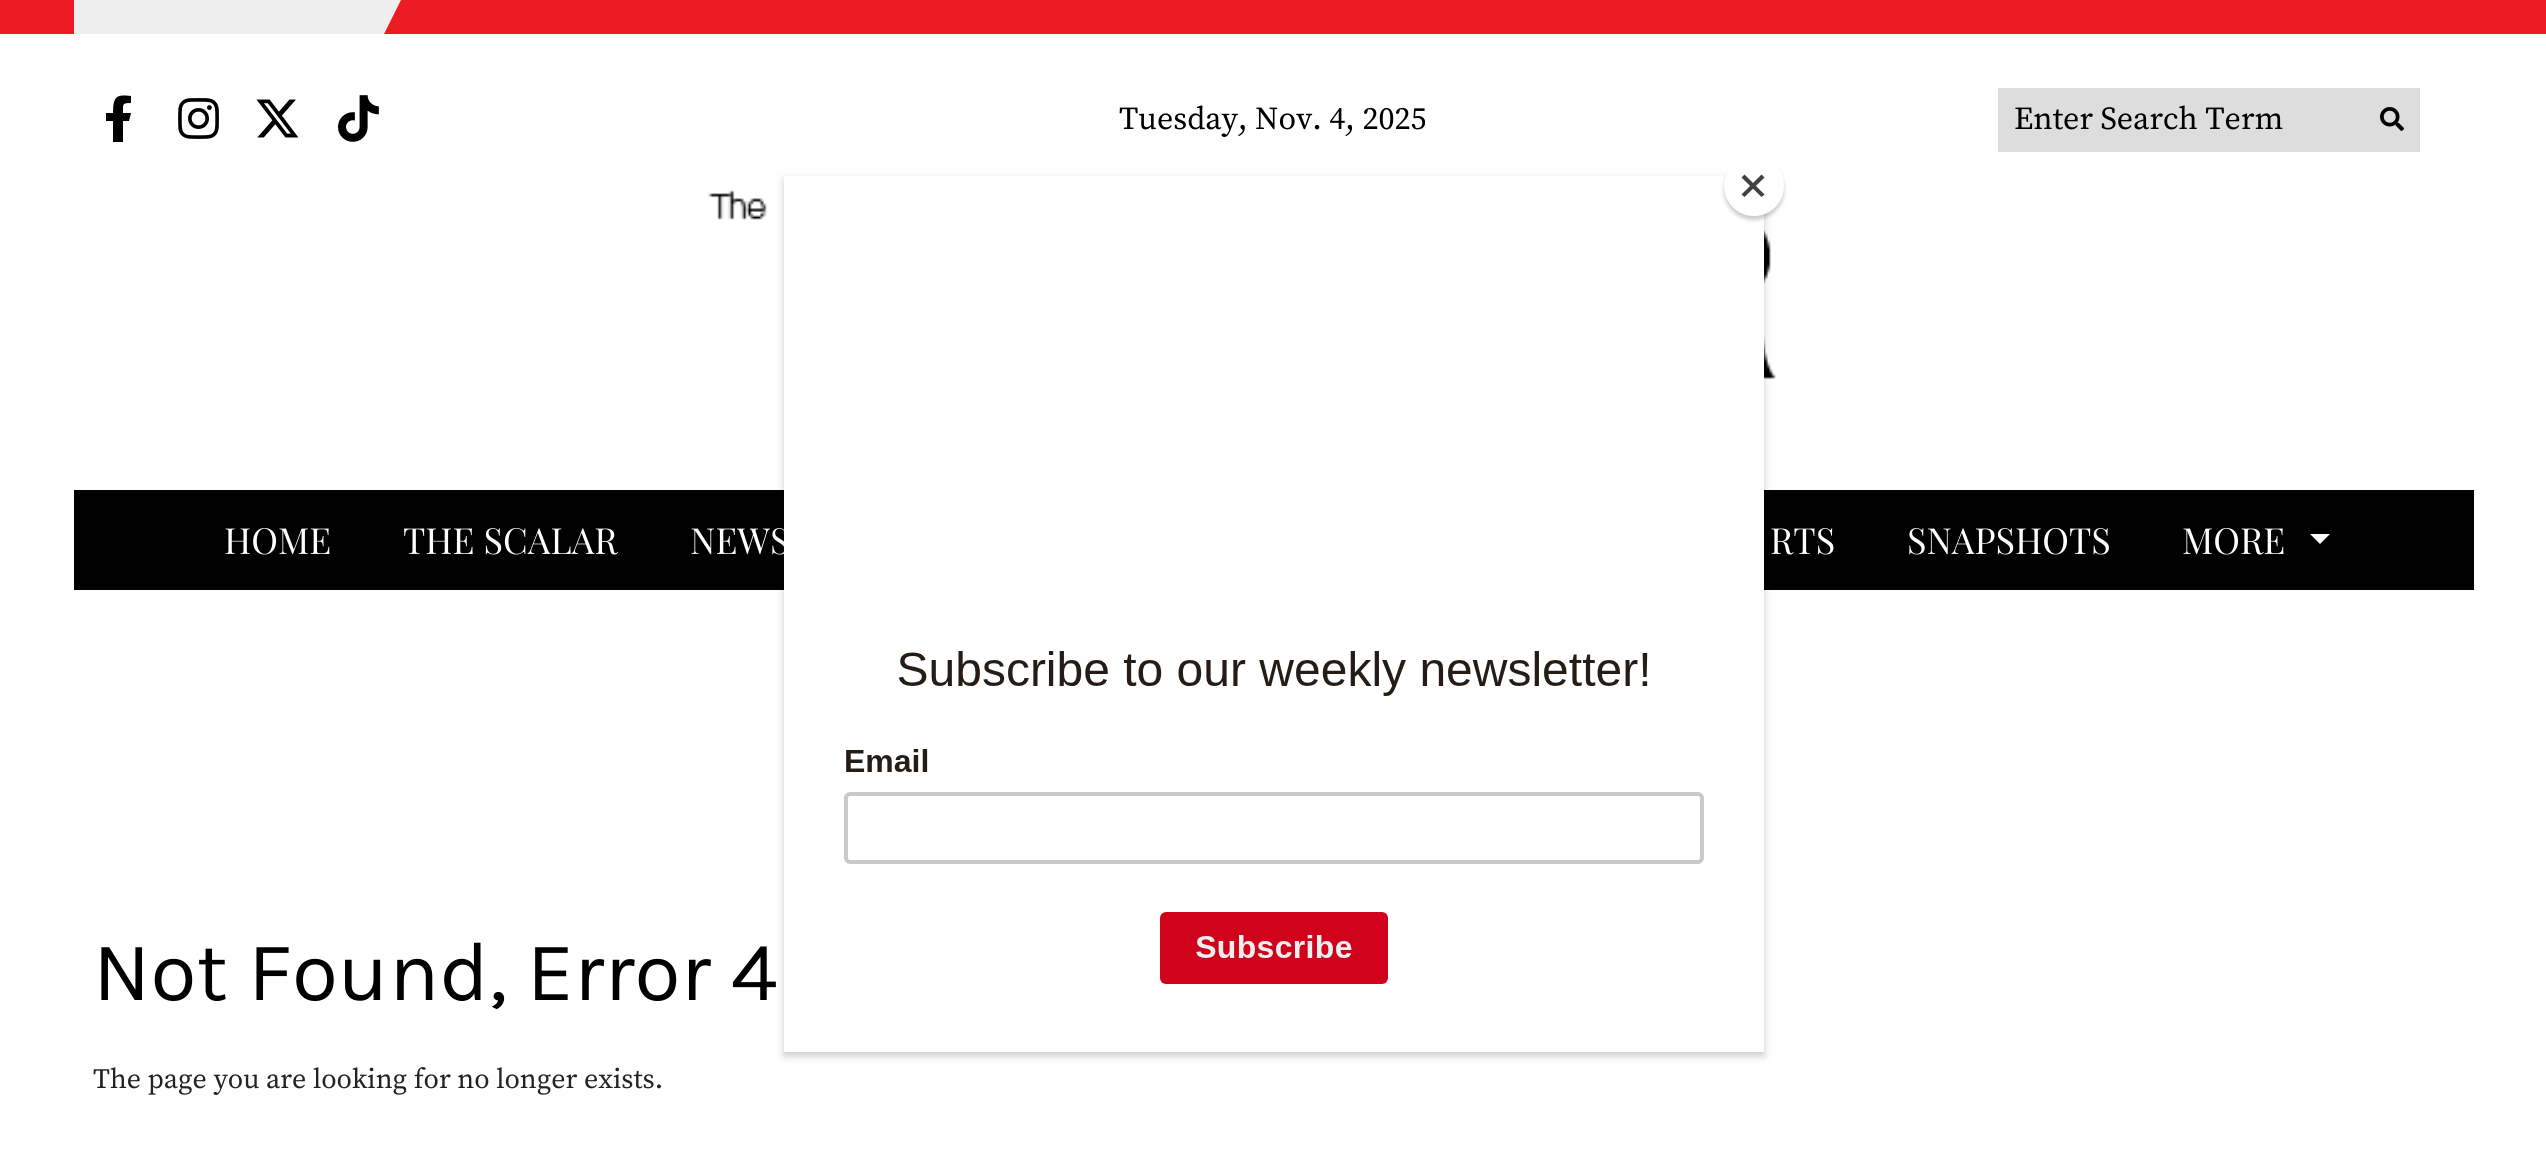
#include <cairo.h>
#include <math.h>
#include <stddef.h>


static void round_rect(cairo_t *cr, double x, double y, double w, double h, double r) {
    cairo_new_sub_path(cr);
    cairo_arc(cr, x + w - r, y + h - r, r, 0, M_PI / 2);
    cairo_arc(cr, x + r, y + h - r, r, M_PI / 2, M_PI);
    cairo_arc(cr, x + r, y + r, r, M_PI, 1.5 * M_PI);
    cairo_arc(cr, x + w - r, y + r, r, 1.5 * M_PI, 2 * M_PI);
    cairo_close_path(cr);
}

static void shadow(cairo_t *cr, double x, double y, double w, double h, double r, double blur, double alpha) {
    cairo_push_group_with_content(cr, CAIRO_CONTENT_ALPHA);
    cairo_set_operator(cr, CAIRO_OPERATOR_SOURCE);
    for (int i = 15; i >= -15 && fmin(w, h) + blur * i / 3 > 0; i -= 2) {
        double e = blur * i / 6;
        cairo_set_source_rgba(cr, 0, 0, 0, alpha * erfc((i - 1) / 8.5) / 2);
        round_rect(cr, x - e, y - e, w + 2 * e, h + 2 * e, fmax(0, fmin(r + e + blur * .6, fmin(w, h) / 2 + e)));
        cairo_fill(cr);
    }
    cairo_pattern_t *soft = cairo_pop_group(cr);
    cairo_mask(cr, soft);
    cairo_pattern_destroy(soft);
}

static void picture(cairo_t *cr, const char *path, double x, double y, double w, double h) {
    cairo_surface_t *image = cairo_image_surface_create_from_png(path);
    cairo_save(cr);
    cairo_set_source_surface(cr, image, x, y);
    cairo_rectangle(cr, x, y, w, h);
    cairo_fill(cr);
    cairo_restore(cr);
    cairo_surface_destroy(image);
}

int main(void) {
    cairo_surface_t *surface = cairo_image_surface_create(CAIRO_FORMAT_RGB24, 2546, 1171);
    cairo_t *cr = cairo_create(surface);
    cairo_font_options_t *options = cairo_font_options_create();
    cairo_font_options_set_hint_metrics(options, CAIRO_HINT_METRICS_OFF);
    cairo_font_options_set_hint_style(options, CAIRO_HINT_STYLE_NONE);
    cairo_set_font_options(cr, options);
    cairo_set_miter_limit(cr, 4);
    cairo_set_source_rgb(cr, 1, 1, 1);
    cairo_paint(cr);
    cairo_set_source_rgb(cr, 0.929, 0.11, 0.141);
    cairo_rectangle(cr, 0, 0, 2546, 34);
    cairo_fill(cr);
    cairo_set_source_rgb(cr, 0.933, 0.933, 0.933);
    cairo_rectangle(cr, 74, 0, 310, 34);
    cairo_fill(cr);
    cairo_new_path(cr);
    cairo_move_to(cr, 384, 34);
    cairo_line_to(cr, 384, -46);
    cairo_line_to(cr, 404, -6);
    cairo_close_path(cr);
    cairo_fill(cr);
    cairo_set_source_rgb(cr, 0, 0, 0);
    cairo_new_path(cr);
    cairo_move_to(cr, 129, 121);
    cairo_line_to(cr, 123, 121);
    cairo_line_to(cr, 123, 142);
    cairo_line_to(cr, 113, 142);
    cairo_line_to(cr, 113, 121);
    cairo_line_to(cr, 106, 121);
    cairo_line_to(cr, 106, 113);
    cairo_line_to(cr, 113, 113);
    cairo_curve_to(cr, 113, 97, 116, 94, 131, 96);
    cairo_line_to(cr, 131, 103);
    cairo_curve_to(cr, 122, 103, 123, 104, 123, 113);
    cairo_line_to(cr, 131, 113);
    cairo_close_path(cr);
    cairo_fill(cr);
    picture(cr, "img1.png", 178, 98, 41, 41);
    picture(cr, "img2.png", 256, 99, 43, 39);
    picture(cr, "img3.png", 338, 95, 41, 47);
    cairo_select_font_face(cr, "Source Serif Pro", CAIRO_FONT_SLANT_NORMAL, CAIRO_FONT_WEIGHT_NORMAL);
    cairo_set_font_size(cr, 32);
    cairo_move_to(cr, 1119, 129);
    cairo_show_text(cr, "Tuesday, Nov. 4, 2025");
    cairo_set_source_rgb(cr, 0.867, 0.867, 0.867);
    cairo_rectangle(cr, 1998, 88, 422, 64);
    cairo_fill(cr);
    cairo_set_source_rgb(cr, 0, 0, 0);
    cairo_move_to(cr, 2014, 129);
    cairo_show_text(cr, "Enter Search Term");
    picture(cr, "img4.png", 2380, 107, 24, 24);
    picture(cr, "img5.png", 707, 190, 1069, 189);
    cairo_rectangle(cr, 74, 490, 2400, 100);
    cairo_fill(cr);
    cairo_select_font_face(cr, "Playfair Display", CAIRO_FONT_SLANT_NORMAL, CAIRO_FONT_WEIGHT_NORMAL);
    cairo_set_font_size(cr, 36);
    cairo_set_source_rgb(cr, 1, 1, 1);
    cairo_move_to(cr, 224, 554);
    cairo_show_text(cr, "HOME");
    cairo_move_to(cr, 403, 554);
    cairo_show_text(cr, "THE SCALAR");
    cairo_move_to(cr, 690, 554);
    cairo_show_text(cr, "NEWS");
    cairo_move_to(cr, 1770, 554);
    cairo_show_text(cr, "RTS");
    cairo_move_to(cr, 1907, 554);
    cairo_show_text(cr, "SNAPSHOTS");
    cairo_move_to(cr, 2182, 554);
    cairo_show_text(cr, "MORE");
    cairo_new_path(cr);
    cairo_move_to(cr, 2310, 534);
    cairo_line_to(cr, 2330, 534);
    cairo_line_to(cr, 2320, 544);
    cairo_close_path(cr);
    cairo_fill(cr);
    cairo_select_font_face(cr, "Karla", CAIRO_FONT_SLANT_NORMAL, CAIRO_FONT_WEIGHT_NORMAL);
    cairo_set_font_size(cr, 84);
    cairo_set_source_rgb(cr, 0, 0, 0);
    cairo_move_to(cr, 93, 1000);
    cairo_show_text(cr, "Not Found, Error 4");
    cairo_select_font_face(cr, "Source Serif Pro", CAIRO_FONT_SLANT_NORMAL, CAIRO_FONT_WEIGHT_NORMAL);
    cairo_set_font_size(cr, 28);
    cairo_set_source_rgb(cr, 0.133, 0.133, 0.133);
    cairo_move_to(cr, 93, 1088);
    cairo_show_text(cr, "The page you are looking for no longer exists.");
    cairo_save(cr);
    cairo_set_fill_rule(cr, CAIRO_FILL_RULE_EVEN_ODD);
    cairo_new_path(cr);
    cairo_move_to(cr, 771, 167);
    cairo_line_to(cr, 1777, 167);
    cairo_line_to(cr, 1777, 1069);
    cairo_line_to(cr, 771, 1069);
    cairo_close_path(cr);
    cairo_move_to(cr, 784, 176);
    cairo_line_to(cr, 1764, 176);
    cairo_line_to(cr, 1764, 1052);
    cairo_line_to(cr, 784, 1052);
    cairo_close_path(cr);
    cairo_clip(cr);
    cairo_set_source_rgb(cr, 0, 0, 0);
    shadow(cr, 784, 180, 980, 876, 0, 4, 0.2);
    cairo_restore(cr);
    picture(cr, "img6.png", 784, 208, 980, 793);
    cairo_set_source_rgb(cr, 0, 0, 0);
    shadow(cr, 1724, 160, 60, 60, 30, 2, 0.2);
    cairo_set_source_rgb(cr, 1, 1, 1);
    cairo_arc(cr, 1754, 186, 30, 0, 2 * M_PI);
    cairo_fill(cr);
    cairo_set_source_rgb(cr, 0.255, 0.255, 0.255);
    cairo_new_path(cr);
    cairo_move_to(cr, 1761.5, 174.5);
    cairo_line_to(cr, 1764.5, 177.5);
    cairo_line_to(cr, 1744.5, 197);
    cairo_line_to(cr, 1741.5, 194.5);
    cairo_close_path(cr);
    cairo_fill(cr);
    cairo_new_path(cr);
    cairo_move_to(cr, 1741.5, 177.5);
    cairo_line_to(cr, 1744.5, 174.5);
    cairo_line_to(cr, 1764.5, 194.5);
    cairo_line_to(cr, 1761.5, 197);
    cairo_close_path(cr);
    cairo_fill(cr);
    cairo_surface_write_to_png(surface, "page.png");
    cairo_font_options_destroy(options);
    cairo_destroy(cr);
    cairo_surface_destroy(surface);
    return 0;
}
